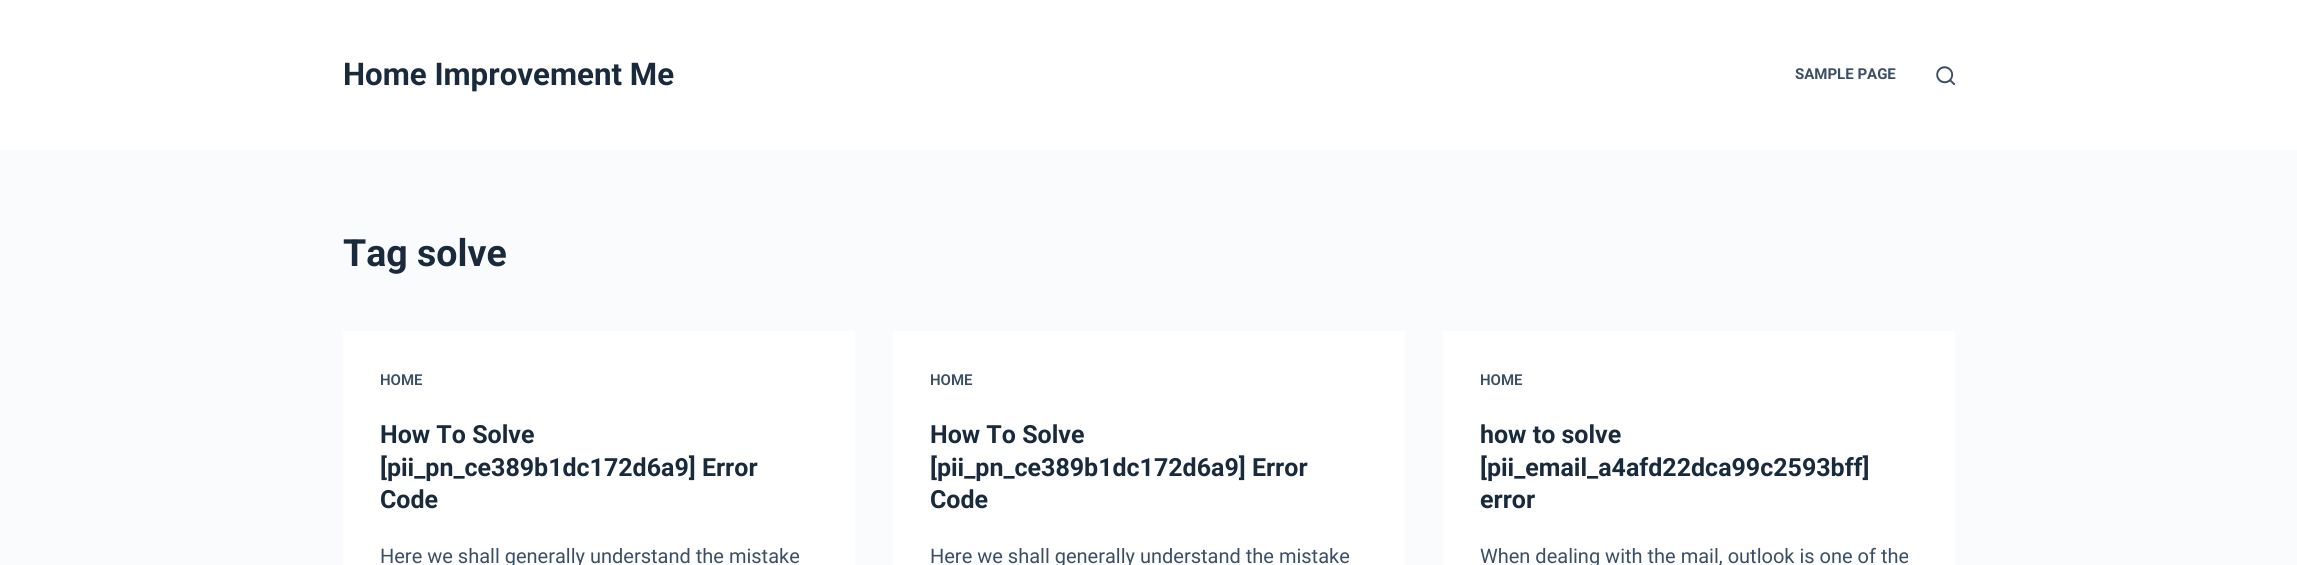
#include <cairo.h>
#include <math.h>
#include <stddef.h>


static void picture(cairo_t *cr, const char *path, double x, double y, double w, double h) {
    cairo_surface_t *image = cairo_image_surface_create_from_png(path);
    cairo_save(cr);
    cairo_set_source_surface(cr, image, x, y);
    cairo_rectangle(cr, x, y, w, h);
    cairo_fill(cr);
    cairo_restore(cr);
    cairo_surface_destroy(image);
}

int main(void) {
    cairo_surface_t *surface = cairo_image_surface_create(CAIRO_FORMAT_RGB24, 2297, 565);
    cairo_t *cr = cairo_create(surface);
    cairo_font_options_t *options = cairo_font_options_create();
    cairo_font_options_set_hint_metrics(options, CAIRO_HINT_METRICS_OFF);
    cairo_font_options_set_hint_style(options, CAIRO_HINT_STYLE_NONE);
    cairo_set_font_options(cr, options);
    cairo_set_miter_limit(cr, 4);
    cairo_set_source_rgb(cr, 0.98, 0.984, 0.988);
    cairo_paint(cr);
    cairo_set_source_rgb(cr, 1, 1, 1);
    cairo_rectangle(cr, 0, 0, 2297, 150);
    cairo_fill(cr);
    cairo_select_font_face(cr, "Roboto", CAIRO_FONT_SLANT_NORMAL, CAIRO_FONT_WEIGHT_BOLD);
    cairo_set_font_size(cr, 31.25);
    cairo_set_source_rgb(cr, 0.098, 0.165, 0.239);
    cairo_move_to(cr, 343, 85);
    cairo_show_text(cr, "Home Improvement Me");
    cairo_set_font_size(cr, 15);
    cairo_set_source_rgb(cr, 0.227, 0.31, 0.4);
    cairo_move_to(cr, 1795, 79);
    cairo_show_text(cr, "SAMPLE PAGE");
    picture(cr, "img1.png", 1936, 66, 19, 19);
    cairo_set_font_size(cr, 37.5);
    cairo_set_source_rgb(cr, 0.098, 0.165, 0.239);
    cairo_move_to(cr, 343, 266);
    cairo_show_text(cr, "Tag solve");
    cairo_set_source_rgb(cr, 1, 1, 1);
    cairo_rectangle(cr, 343, 331, 512, 234);
    cairo_fill(cr);
    cairo_select_font_face(cr, "Roboto SemiBold", CAIRO_FONT_SLANT_NORMAL, CAIRO_FONT_WEIGHT_NORMAL);
    cairo_set_font_size(cr, 15);
    cairo_set_source_rgb(cr, 0.227, 0.31, 0.4);
    cairo_move_to(cr, 380, 385);
    cairo_show_text(cr, "HOME");
    cairo_select_font_face(cr, "Roboto", CAIRO_FONT_SLANT_NORMAL, CAIRO_FONT_WEIGHT_BOLD);
    cairo_set_font_size(cr, 25);
    cairo_set_source_rgb(cr, 0.098, 0.165, 0.239);
    cairo_move_to(cr, 380, 443);
    cairo_show_text(cr, "How To Solve");
    cairo_move_to(cr, 380, 476);
    cairo_show_text(cr, "[pii_pn_ce389b1dc172d6a9] Error");
    cairo_move_to(cr, 380, 508);
    cairo_show_text(cr, "Code");
    cairo_select_font_face(cr, "Roboto", CAIRO_FONT_SLANT_NORMAL, CAIRO_FONT_WEIGHT_NORMAL);
    cairo_set_font_size(cr, 20);
    cairo_set_source_rgb(cr, 0.227, 0.31, 0.4);
    cairo_move_to(cr, 380, 563);
    cairo_show_text(cr, "Here we shall generally understand the mistake");
    cairo_set_source_rgb(cr, 1, 1, 1);
    cairo_rectangle(cr, 893, 331, 512, 234);
    cairo_fill(cr);
    cairo_select_font_face(cr, "Roboto SemiBold", CAIRO_FONT_SLANT_NORMAL, CAIRO_FONT_WEIGHT_NORMAL);
    cairo_set_font_size(cr, 15);
    cairo_set_source_rgb(cr, 0.227, 0.31, 0.4);
    cairo_move_to(cr, 930, 385);
    cairo_show_text(cr, "HOME");
    cairo_select_font_face(cr, "Roboto", CAIRO_FONT_SLANT_NORMAL, CAIRO_FONT_WEIGHT_BOLD);
    cairo_set_font_size(cr, 25);
    cairo_set_source_rgb(cr, 0.098, 0.165, 0.239);
    cairo_move_to(cr, 930, 443);
    cairo_show_text(cr, "How To Solve");
    cairo_move_to(cr, 930, 476);
    cairo_show_text(cr, "[pii_pn_ce389b1dc172d6a9] Error");
    cairo_move_to(cr, 930, 508);
    cairo_show_text(cr, "Code");
    cairo_select_font_face(cr, "Roboto", CAIRO_FONT_SLANT_NORMAL, CAIRO_FONT_WEIGHT_NORMAL);
    cairo_set_font_size(cr, 20);
    cairo_set_source_rgb(cr, 0.227, 0.31, 0.4);
    cairo_move_to(cr, 930, 563);
    cairo_show_text(cr, "Here we shall generally understand the mistake");
    cairo_set_source_rgb(cr, 1, 1, 1);
    cairo_rectangle(cr, 1443, 331, 512, 234);
    cairo_fill(cr);
    cairo_select_font_face(cr, "Roboto SemiBold", CAIRO_FONT_SLANT_NORMAL, CAIRO_FONT_WEIGHT_NORMAL);
    cairo_set_font_size(cr, 15);
    cairo_set_source_rgb(cr, 0.227, 0.31, 0.4);
    cairo_move_to(cr, 1480, 385);
    cairo_show_text(cr, "HOME");
    cairo_select_font_face(cr, "Roboto", CAIRO_FONT_SLANT_NORMAL, CAIRO_FONT_WEIGHT_BOLD);
    cairo_set_font_size(cr, 25);
    cairo_set_source_rgb(cr, 0.098, 0.165, 0.239);
    cairo_move_to(cr, 1480, 443);
    cairo_show_text(cr, "how to solve");
    cairo_move_to(cr, 1480, 476);
    cairo_show_text(cr, "[pii_email_a4afd22dca99c2593bff]");
    cairo_move_to(cr, 1480, 508);
    cairo_show_text(cr, "error");
    cairo_select_font_face(cr, "Roboto", CAIRO_FONT_SLANT_NORMAL, CAIRO_FONT_WEIGHT_NORMAL);
    cairo_set_font_size(cr, 20);
    cairo_set_source_rgb(cr, 0.227, 0.31, 0.4);
    cairo_move_to(cr, 1480, 563);
    cairo_show_text(cr, "When dealing with the mail, outlook is one of the");
    cairo_surface_write_to_png(surface, "page.png");
    cairo_font_options_destroy(options);
    cairo_destroy(cr);
    cairo_surface_destroy(surface);
    return 0;
}
